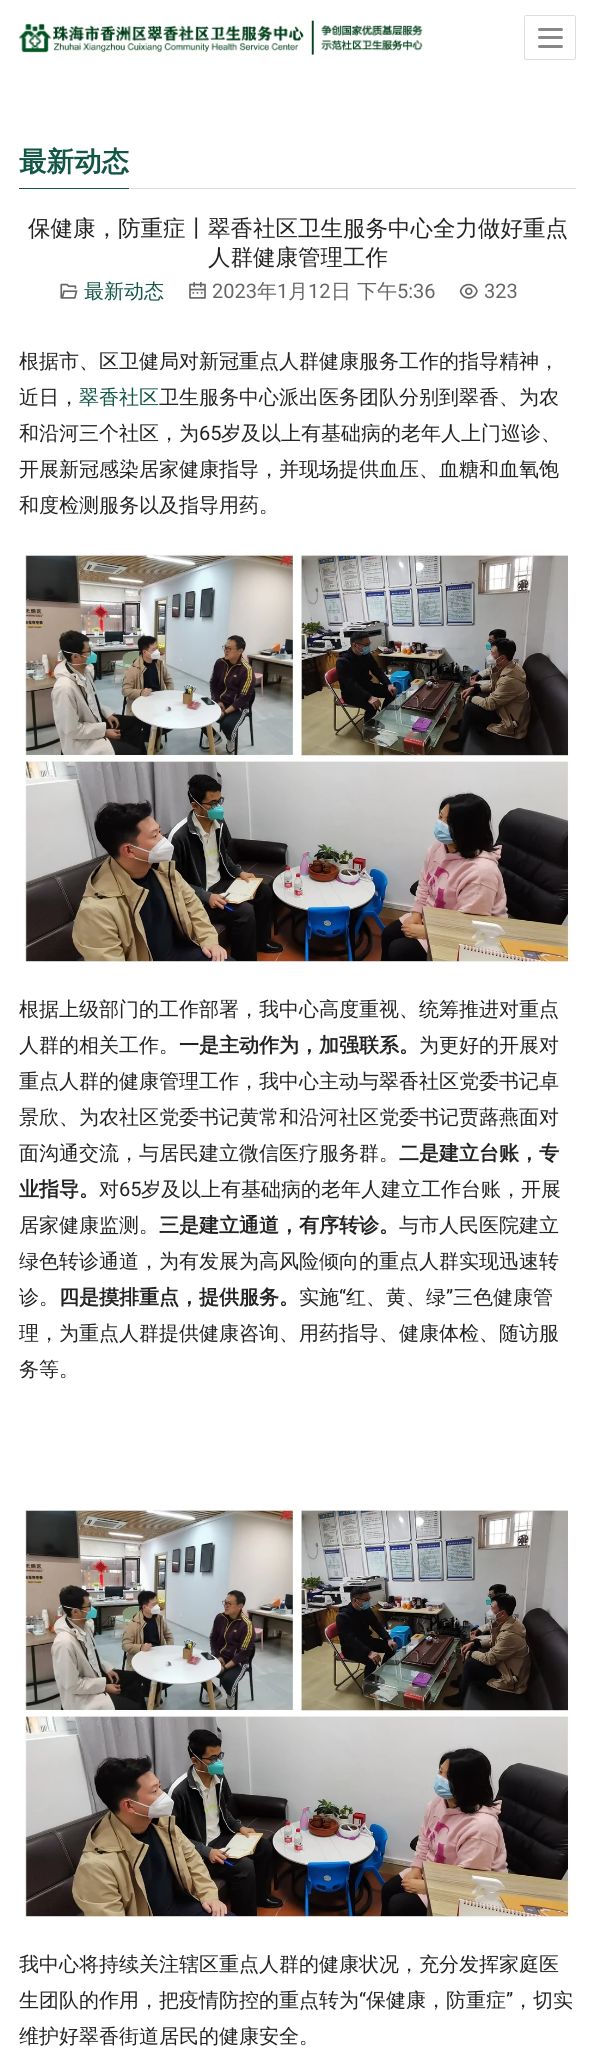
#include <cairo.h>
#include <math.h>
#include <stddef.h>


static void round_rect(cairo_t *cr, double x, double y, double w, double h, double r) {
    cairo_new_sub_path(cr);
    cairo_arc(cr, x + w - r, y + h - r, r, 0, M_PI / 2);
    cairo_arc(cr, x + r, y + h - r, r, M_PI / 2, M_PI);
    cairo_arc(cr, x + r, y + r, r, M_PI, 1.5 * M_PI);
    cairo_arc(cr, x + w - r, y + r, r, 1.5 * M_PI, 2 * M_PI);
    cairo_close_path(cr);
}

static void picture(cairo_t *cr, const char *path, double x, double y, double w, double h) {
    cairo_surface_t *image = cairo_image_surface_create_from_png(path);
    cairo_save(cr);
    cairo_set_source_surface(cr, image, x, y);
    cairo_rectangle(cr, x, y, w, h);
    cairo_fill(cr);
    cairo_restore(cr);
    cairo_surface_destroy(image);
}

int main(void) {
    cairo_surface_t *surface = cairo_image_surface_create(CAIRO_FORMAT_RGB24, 594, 2065);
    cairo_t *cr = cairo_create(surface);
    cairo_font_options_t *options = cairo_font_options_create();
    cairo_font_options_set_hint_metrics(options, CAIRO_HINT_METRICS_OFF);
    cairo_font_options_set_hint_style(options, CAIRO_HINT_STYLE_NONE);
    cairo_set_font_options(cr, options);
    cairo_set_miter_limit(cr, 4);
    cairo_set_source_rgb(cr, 1, 1, 1);
    cairo_paint(cr);
    picture(cr, "img1.png", 19, 20, 404, 35);
    round_rect(cr, 524.5, 15.5, 51, 44, 2);
    cairo_set_source_rgb(cr, 0.867, 0.867, 0.867);
    cairo_set_line_width(cr, 1);
    cairo_stroke(cr);
    cairo_set_source_rgb(cr, 0.533, 0.533, 0.533);
    round_rect(cr, 538, 28, 25, 3, 1.5);
    cairo_fill(cr);
    round_rect(cr, 538, 36, 25, 3, 1.5);
    cairo_fill(cr);
    round_rect(cr, 538, 45, 25, 3, 1.5);
    cairo_fill(cr);
    cairo_set_source_rgb(cr, 0.867, 0.867, 0.867);
    cairo_rectangle(cr, 129, 188, 447, 1);
    cairo_fill(cr);
    cairo_set_source_rgb(cr, 0.071, 0.337, 0.275);
    cairo_rectangle(cr, 19, 188, 110, 1);
    cairo_fill(cr);
    cairo_select_font_face(cr, "WenQuanYi Zen Hei", CAIRO_FONT_SLANT_NORMAL, CAIRO_FONT_WEIGHT_BOLD);
    cairo_set_font_size(cr, 27.5);
    cairo_move_to(cr, 19, 171);
    cairo_show_text(cr, "最新动态");
    cairo_select_font_face(cr, "WenQuanYi Zen Hei Medium", CAIRO_FONT_SLANT_NORMAL, CAIRO_FONT_WEIGHT_NORMAL);
    cairo_set_font_size(cr, 22.5);
    cairo_set_source_rgb(cr, 0.137, 0.137, 0.137);
    cairo_move_to(cr, 28, 236);
    cairo_show_text(cr, "保健康，防重症丨翠香社区卫生服务中心全力做好重点");
    cairo_move_to(cr, 208, 265);
    cairo_show_text(cr, "人群健康管理工作");
    picture(cr, "img2.png", 60, 283, 18, 16);
    cairo_set_font_size(cr, 20);
    cairo_set_source_rgb(cr, 0.071, 0.337, 0.275);
    cairo_move_to(cr, 84, 298);
    cairo_show_text(cr, "最新动态");
    picture(cr, "img3.png", 189, 282, 17, 17);
    cairo_select_font_face(cr, "Roboto", CAIRO_FONT_SLANT_NORMAL, CAIRO_FONT_WEIGHT_NORMAL);
    cairo_set_source_rgb(cr, 0.4, 0.4, 0.4);
    cairo_move_to(cr, 212, 298);
    cairo_show_text(cr, "2023");
    cairo_select_font_face(cr, "WenQuanYi Zen Hei Medium", CAIRO_FONT_SLANT_NORMAL, CAIRO_FONT_WEIGHT_NORMAL);
    cairo_move_to(cr, 257, 298);
    cairo_show_text(cr, "年");
    cairo_select_font_face(cr, "Roboto", CAIRO_FONT_SLANT_NORMAL, CAIRO_FONT_WEIGHT_NORMAL);
    cairo_move_to(cr, 277, 298);
    cairo_show_text(cr, "1");
    cairo_select_font_face(cr, "WenQuanYi Zen Hei Medium", CAIRO_FONT_SLANT_NORMAL, CAIRO_FONT_WEIGHT_NORMAL);
    cairo_move_to(cr, 288, 298);
    cairo_show_text(cr, "月");
    cairo_select_font_face(cr, "Roboto", CAIRO_FONT_SLANT_NORMAL, CAIRO_FONT_WEIGHT_NORMAL);
    cairo_move_to(cr, 308, 298);
    cairo_show_text(cr, "12");
    cairo_select_font_face(cr, "WenQuanYi Zen Hei Medium", CAIRO_FONT_SLANT_NORMAL, CAIRO_FONT_WEIGHT_NORMAL);
    cairo_move_to(cr, 331, 298);
    cairo_show_text(cr, "日 下午");
    cairo_select_font_face(cr, "Roboto", CAIRO_FONT_SLANT_NORMAL, CAIRO_FONT_WEIGHT_NORMAL);
    cairo_move_to(cr, 397, 298);
    cairo_show_text(cr, "5:36");
    picture(cr, "img4.png", 459, 283, 19, 16);
    cairo_move_to(cr, 484, 298);
    cairo_show_text(cr, "323");
    cairo_select_font_face(cr, "WenQuanYi Zen Hei Medium", CAIRO_FONT_SLANT_NORMAL, CAIRO_FONT_WEIGHT_NORMAL);
    cairo_set_source_rgb(cr, 0.137, 0.137, 0.137);
    cairo_move_to(cr, 19, 368);
    cairo_show_text(cr, "根据市、区卫健局对新冠重点人群健康服务工作的指导精神，");
    cairo_move_to(cr, 19, 404);
    cairo_show_text(cr, "近日，");
    cairo_set_source_rgb(cr, 0.071, 0.337, 0.275);
    cairo_move_to(cr, 79, 404);
    cairo_show_text(cr, "翠香社区");
    cairo_set_source_rgb(cr, 0.137, 0.137, 0.137);
    cairo_move_to(cr, 159, 404);
    cairo_show_text(cr, "卫生服务中心派出医务团队分别到翠香、为农");
    cairo_move_to(cr, 19, 440);
    cairo_show_text(cr, "和沿河三个社区，为");
    cairo_select_font_face(cr, "Roboto", CAIRO_FONT_SLANT_NORMAL, CAIRO_FONT_WEIGHT_NORMAL);
    cairo_move_to(cr, 199, 440);
    cairo_show_text(cr, "65");
    cairo_select_font_face(cr, "WenQuanYi Zen Hei Medium", CAIRO_FONT_SLANT_NORMAL, CAIRO_FONT_WEIGHT_NORMAL);
    cairo_move_to(cr, 221, 440);
    cairo_show_text(cr, "岁及以上有基础病的老年人上门巡诊、");
    cairo_move_to(cr, 19, 476);
    cairo_show_text(cr, "开展新冠感染居家健康指导，并现场提供血压、血糖和血氧饱");
    cairo_move_to(cr, 19, 512);
    cairo_show_text(cr, "和度检测服务以及指导用药。");
    picture(cr, "img5.png", 25, 554, 546, 409);
    cairo_move_to(cr, 19, 1016);
    cairo_show_text(cr, "根据上级部门的工作部署，我中心高度重视、统筹推进对重点");
    cairo_move_to(cr, 19, 1052);
    cairo_show_text(cr, "人群的相关工作。");
    cairo_select_font_face(cr, "WenQuanYi Zen Hei", CAIRO_FONT_SLANT_NORMAL, CAIRO_FONT_WEIGHT_BOLD);
    cairo_move_to(cr, 179, 1052);
    cairo_show_text(cr, "一是主动作为，加强联系。");
    cairo_select_font_face(cr, "WenQuanYi Zen Hei Medium", CAIRO_FONT_SLANT_NORMAL, CAIRO_FONT_WEIGHT_NORMAL);
    cairo_move_to(cr, 419, 1052);
    cairo_show_text(cr, "为更好的开展对");
    cairo_move_to(cr, 19, 1088);
    cairo_show_text(cr, "重点人群的健康管理工作，我中心主动与翠香社区党委书记卓");
    cairo_move_to(cr, 19, 1124);
    cairo_show_text(cr, "景欣、为农社区党委书记黄常和沿河社区党委书记贾蕗燕面对");
    cairo_move_to(cr, 19, 1160);
    cairo_show_text(cr, "面沟通交流，与居民建立微信医疗服务群。");
    cairo_select_font_face(cr, "WenQuanYi Zen Hei", CAIRO_FONT_SLANT_NORMAL, CAIRO_FONT_WEIGHT_BOLD);
    cairo_move_to(cr, 399, 1160);
    cairo_show_text(cr, "二是建立台账，专");
    cairo_move_to(cr, 19, 1196);
    cairo_show_text(cr, "业指导。");
    cairo_select_font_face(cr, "WenQuanYi Zen Hei Medium", CAIRO_FONT_SLANT_NORMAL, CAIRO_FONT_WEIGHT_NORMAL);
    cairo_move_to(cr, 99, 1196);
    cairo_show_text(cr, "对");
    cairo_select_font_face(cr, "Roboto", CAIRO_FONT_SLANT_NORMAL, CAIRO_FONT_WEIGHT_NORMAL);
    cairo_move_to(cr, 119, 1196);
    cairo_show_text(cr, "65");
    cairo_select_font_face(cr, "WenQuanYi Zen Hei Medium", CAIRO_FONT_SLANT_NORMAL, CAIRO_FONT_WEIGHT_NORMAL);
    cairo_move_to(cr, 141, 1196);
    cairo_show_text(cr, "岁及以上有基础病的老年人建立工作台账，开展");
    cairo_move_to(cr, 19, 1232);
    cairo_show_text(cr, "居家健康监测。");
    cairo_select_font_face(cr, "WenQuanYi Zen Hei", CAIRO_FONT_SLANT_NORMAL, CAIRO_FONT_WEIGHT_BOLD);
    cairo_move_to(cr, 159, 1232);
    cairo_show_text(cr, "三是建立通道，有序转诊。");
    cairo_select_font_face(cr, "WenQuanYi Zen Hei Medium", CAIRO_FONT_SLANT_NORMAL, CAIRO_FONT_WEIGHT_NORMAL);
    cairo_move_to(cr, 399, 1232);
    cairo_show_text(cr, "与市人民医院建立");
    cairo_move_to(cr, 19, 1268);
    cairo_show_text(cr, "绿色转诊通道，为有发展为高风险倾向的重点人群实现迅速转");
    cairo_move_to(cr, 19, 1304);
    cairo_show_text(cr, "诊。");
    cairo_select_font_face(cr, "WenQuanYi Zen Hei", CAIRO_FONT_SLANT_NORMAL, CAIRO_FONT_WEIGHT_BOLD);
    cairo_move_to(cr, 59, 1304);
    cairo_show_text(cr, "四是摸排重点，提供服务。");
    cairo_select_font_face(cr, "WenQuanYi Zen Hei Medium", CAIRO_FONT_SLANT_NORMAL, CAIRO_FONT_WEIGHT_NORMAL);
    cairo_move_to(cr, 299, 1304);
    cairo_show_text(cr, "实施");
    cairo_select_font_face(cr, "Roboto", CAIRO_FONT_SLANT_NORMAL, CAIRO_FONT_WEIGHT_NORMAL);
    cairo_move_to(cr, 339, 1304);
    cairo_show_text(cr, "“");
    cairo_select_font_face(cr, "WenQuanYi Zen Hei Medium", CAIRO_FONT_SLANT_NORMAL, CAIRO_FONT_WEIGHT_NORMAL);
    cairo_move_to(cr, 346, 1304);
    cairo_show_text(cr, "红、黄、绿");
    cairo_select_font_face(cr, "Roboto", CAIRO_FONT_SLANT_NORMAL, CAIRO_FONT_WEIGHT_NORMAL);
    cairo_move_to(cr, 446, 1304);
    cairo_show_text(cr, "”");
    cairo_select_font_face(cr, "WenQuanYi Zen Hei Medium", CAIRO_FONT_SLANT_NORMAL, CAIRO_FONT_WEIGHT_NORMAL);
    cairo_move_to(cr, 453, 1304);
    cairo_show_text(cr, "三色健康管");
    cairo_move_to(cr, 19, 1340);
    cairo_show_text(cr, "理，为重点人群提供健康咨询、用药指导、健康体检、随访服");
    cairo_move_to(cr, 19, 1376);
    cairo_show_text(cr, "务等。");
    picture(cr, "img5.png", 25, 1509, 546, 409);
    cairo_move_to(cr, 19, 1971);
    cairo_show_text(cr, "我中心将持续关注辖区重点人群的健康状况，充分发挥家庭医");
    cairo_move_to(cr, 19, 2007);
    cairo_show_text(cr, "生团队的作用，把疫情防控的重点转为");
    cairo_select_font_face(cr, "Roboto", CAIRO_FONT_SLANT_NORMAL, CAIRO_FONT_WEIGHT_NORMAL);
    cairo_move_to(cr, 359, 2007);
    cairo_show_text(cr, "“");
    cairo_select_font_face(cr, "WenQuanYi Zen Hei Medium", CAIRO_FONT_SLANT_NORMAL, CAIRO_FONT_WEIGHT_NORMAL);
    cairo_move_to(cr, 366, 2007);
    cairo_show_text(cr, "保健康，防重症");
    cairo_select_font_face(cr, "Roboto", CAIRO_FONT_SLANT_NORMAL, CAIRO_FONT_WEIGHT_NORMAL);
    cairo_move_to(cr, 506, 2007);
    cairo_show_text(cr, "”");
    cairo_select_font_face(cr, "WenQuanYi Zen Hei Medium", CAIRO_FONT_SLANT_NORMAL, CAIRO_FONT_WEIGHT_NORMAL);
    cairo_move_to(cr, 513, 2007);
    cairo_show_text(cr, "，切实");
    cairo_move_to(cr, 19, 2043);
    cairo_show_text(cr, "维护好翠香街道居民的健康安全。");
    cairo_surface_write_to_png(surface, "page.png");
    cairo_font_options_destroy(options);
    cairo_destroy(cr);
    cairo_surface_destroy(surface);
    return 0;
}
